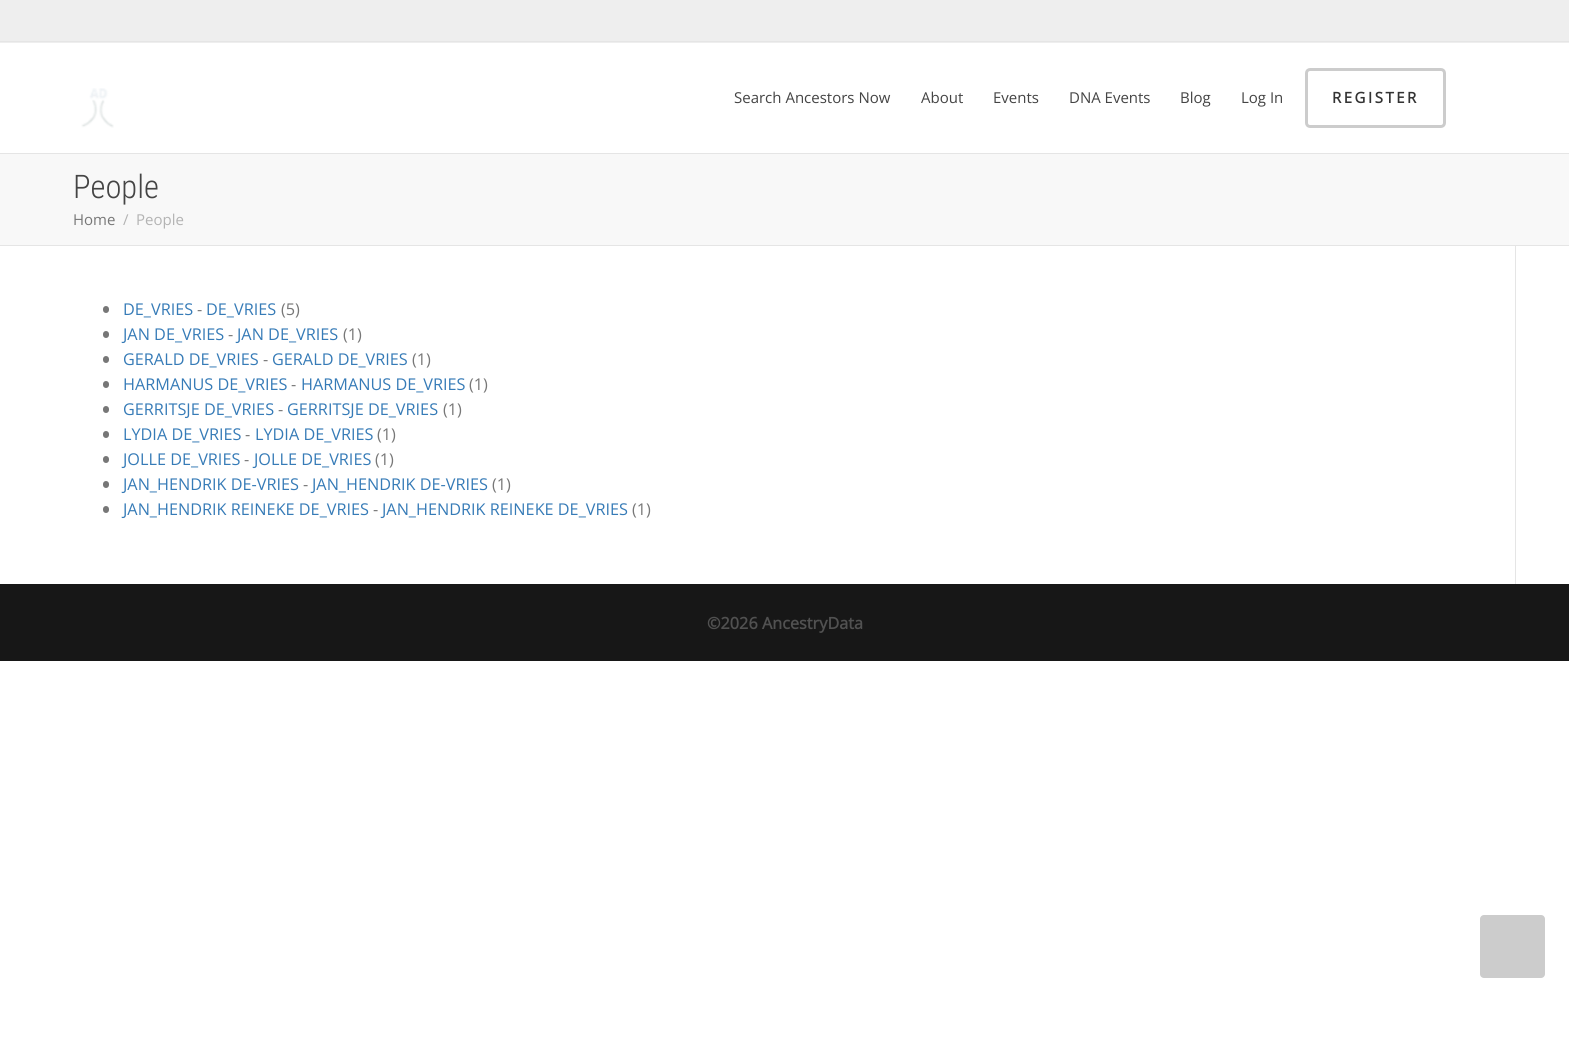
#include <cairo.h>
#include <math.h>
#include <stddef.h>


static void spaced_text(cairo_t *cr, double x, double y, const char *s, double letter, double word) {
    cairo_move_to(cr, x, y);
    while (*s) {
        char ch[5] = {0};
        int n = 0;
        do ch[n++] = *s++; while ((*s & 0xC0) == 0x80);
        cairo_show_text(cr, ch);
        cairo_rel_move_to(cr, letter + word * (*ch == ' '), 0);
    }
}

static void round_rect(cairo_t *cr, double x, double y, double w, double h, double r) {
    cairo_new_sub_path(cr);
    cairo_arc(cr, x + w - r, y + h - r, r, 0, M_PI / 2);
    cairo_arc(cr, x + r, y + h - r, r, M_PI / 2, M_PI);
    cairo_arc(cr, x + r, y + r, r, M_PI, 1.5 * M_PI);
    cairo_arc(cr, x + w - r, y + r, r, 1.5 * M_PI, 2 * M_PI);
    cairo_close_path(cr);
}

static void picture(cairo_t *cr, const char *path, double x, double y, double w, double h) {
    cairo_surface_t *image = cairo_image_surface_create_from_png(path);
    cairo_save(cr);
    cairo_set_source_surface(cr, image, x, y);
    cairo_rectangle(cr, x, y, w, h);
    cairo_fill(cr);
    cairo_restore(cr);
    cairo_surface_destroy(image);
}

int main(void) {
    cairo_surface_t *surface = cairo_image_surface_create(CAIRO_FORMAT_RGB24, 1569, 1040);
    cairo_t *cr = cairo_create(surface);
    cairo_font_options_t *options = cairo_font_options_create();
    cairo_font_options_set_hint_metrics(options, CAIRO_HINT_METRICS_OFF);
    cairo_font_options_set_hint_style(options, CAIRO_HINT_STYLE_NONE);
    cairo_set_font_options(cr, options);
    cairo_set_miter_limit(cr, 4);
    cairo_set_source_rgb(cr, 1, 1, 1);
    cairo_paint(cr);
    cairo_set_source_rgb(cr, 0.933, 0.933, 0.933);
    cairo_rectangle(cr, 0, 0, 1569, 43);
    cairo_fill(cr);
    cairo_set_source_rgb(cr, 0.898, 0.898, 0.898);
    cairo_rectangle(cr, 0, 41, 1569, 1);
    cairo_fill(cr);
    cairo_rectangle(cr, 0, 153, 1569, 1);
    cairo_fill(cr);
    picture(cr, "img1.png", 81, 88, 33, 40);
    cairo_select_font_face(cr, "Open Sans", CAIRO_FONT_SLANT_NORMAL, CAIRO_FONT_WEIGHT_NORMAL);
    cairo_set_font_size(cr, 15);
    cairo_set_source_rgb(cr, 0.267, 0.267, 0.267);
    cairo_move_to(cr, 734, 103);
    cairo_show_text(cr, "Search Ancestors Now");
    cairo_move_to(cr, 921, 103);
    cairo_show_text(cr, "About");
    cairo_move_to(cr, 993, 103);
    cairo_show_text(cr, "Events");
    cairo_move_to(cr, 1069, 103);
    cairo_show_text(cr, "DNA Events");
    cairo_move_to(cr, 1180, 103);
    cairo_show_text(cr, "Blog");
    cairo_move_to(cr, 1241, 103);
    cairo_show_text(cr, "Log In");
    round_rect(cr, 1306.5, 69.5, 138, 57, 3.5);
    cairo_set_source_rgb(cr, 0.8, 0.8, 0.8);
    cairo_set_line_width(cr, 3);
    cairo_stroke(cr);
    cairo_select_font_face(cr, "Open Sans", CAIRO_FONT_SLANT_NORMAL, CAIRO_FONT_WEIGHT_BOLD);
    cairo_set_source_rgb(cr, 0.2, 0.2, 0.2);
    spaced_text(cr, 1332, 103, "REGISTER", 2.5, 0);
    cairo_set_source_rgb(cr, 0.969, 0.969, 0.969);
    cairo_rectangle(cr, 0, 154, 1569, 91);
    cairo_fill(cr);
    cairo_set_source_rgb(cr, 0.898, 0.898, 0.898);
    cairo_rectangle(cr, 0, 245, 1569, 1);
    cairo_fill(cr);
    cairo_select_font_face(cr, "Roboto Condensed Light", CAIRO_FONT_SLANT_NORMAL, CAIRO_FONT_WEIGHT_NORMAL);
    cairo_set_font_size(cr, 32.5);
    cairo_set_source_rgb(cr, 0.267, 0.267, 0.267);
    cairo_move_to(cr, 73, 198);
    cairo_show_text(cr, "People");
    cairo_select_font_face(cr, "Open Sans", CAIRO_FONT_SLANT_NORMAL, CAIRO_FONT_WEIGHT_NORMAL);
    cairo_set_font_size(cr, 15);
    cairo_set_source_rgb(cr, 0.467, 0.467, 0.467);
    cairo_move_to(cr, 73, 225);
    cairo_show_text(cr, "Home");
    cairo_set_source_rgb(cr, 0.702, 0.702, 0.702);
    cairo_move_to(cr, 123, 225);
    cairo_show_text(cr, "/");
    cairo_move_to(cr, 136, 225);
    cairo_show_text(cr, "People");
    cairo_set_source_rgb(cr, 0.898, 0.898, 0.898);
    cairo_rectangle(cr, 1515, 246, 1, 338);
    cairo_fill(cr);
    cairo_set_source_rgb(cr, 0.467, 0.467, 0.467);
    round_rect(cr, 103, 306, 6, 7, 3);
    cairo_fill(cr);
    cairo_set_font_size(cr, 16.25);
    cairo_set_source_rgb(cr, 0.212, 0.482, 0.718);
    cairo_move_to(cr, 123, 315);
    cairo_show_text(cr, "DE_VRIES");
    cairo_set_source_rgb(cr, 0.467, 0.467, 0.467);
    cairo_move_to(cr, 197, 315);
    cairo_show_text(cr, "-");
    cairo_set_source_rgb(cr, 0.212, 0.482, 0.718);
    cairo_move_to(cr, 206, 315);
    cairo_show_text(cr, "DE_VRIES");
    cairo_set_source_rgb(cr, 0.467, 0.467, 0.467);
    cairo_move_to(cr, 281, 315);
    cairo_show_text(cr, "(5)");
    round_rect(cr, 103, 331, 6, 7, 3);
    cairo_fill(cr);
    cairo_set_source_rgb(cr, 0.212, 0.482, 0.718);
    cairo_move_to(cr, 123, 340);
    cairo_show_text(cr, "JAN DE_VRIES");
    cairo_set_source_rgb(cr, 0.467, 0.467, 0.467);
    cairo_move_to(cr, 228, 340);
    cairo_show_text(cr, "-");
    cairo_set_source_rgb(cr, 0.212, 0.482, 0.718);
    cairo_move_to(cr, 237, 340);
    cairo_show_text(cr, "JAN DE_VRIES");
    cairo_set_source_rgb(cr, 0.467, 0.467, 0.467);
    cairo_move_to(cr, 343, 340);
    cairo_show_text(cr, "(1)");
    round_rect(cr, 103, 356, 6, 7, 3);
    cairo_fill(cr);
    cairo_set_source_rgb(cr, 0.212, 0.482, 0.718);
    cairo_move_to(cr, 123, 365);
    cairo_show_text(cr, "GERALD DE_VRIES");
    cairo_set_source_rgb(cr, 0.467, 0.467, 0.467);
    cairo_move_to(cr, 263, 365);
    cairo_show_text(cr, "-");
    cairo_set_source_rgb(cr, 0.212, 0.482, 0.718);
    cairo_move_to(cr, 272, 365);
    cairo_show_text(cr, "GERALD DE_VRIES");
    cairo_set_source_rgb(cr, 0.467, 0.467, 0.467);
    cairo_move_to(cr, 412, 365);
    cairo_show_text(cr, "(1)");
    round_rect(cr, 103, 381, 6, 7, 3);
    cairo_fill(cr);
    cairo_set_source_rgb(cr, 0.212, 0.482, 0.718);
    cairo_move_to(cr, 123, 390);
    cairo_show_text(cr, "HARMANUS DE_VRIES");
    cairo_set_source_rgb(cr, 0.467, 0.467, 0.467);
    cairo_move_to(cr, 291, 390);
    cairo_show_text(cr, "-");
    cairo_set_source_rgb(cr, 0.212, 0.482, 0.718);
    cairo_move_to(cr, 301, 390);
    cairo_show_text(cr, "HARMANUS DE_VRIES");
    cairo_set_source_rgb(cr, 0.467, 0.467, 0.467);
    cairo_move_to(cr, 469, 390);
    cairo_show_text(cr, "(1)");
    round_rect(cr, 103, 406, 6, 7, 3);
    cairo_fill(cr);
    cairo_set_source_rgb(cr, 0.212, 0.482, 0.718);
    cairo_move_to(cr, 123, 415);
    cairo_show_text(cr, "GERRITSJE DE_VRIES");
    cairo_set_source_rgb(cr, 0.467, 0.467, 0.467);
    cairo_move_to(cr, 278, 415);
    cairo_show_text(cr, "-");
    cairo_set_source_rgb(cr, 0.212, 0.482, 0.718);
    cairo_move_to(cr, 287, 415);
    cairo_show_text(cr, "GERRITSJE DE_VRIES");
    cairo_set_source_rgb(cr, 0.467, 0.467, 0.467);
    cairo_move_to(cr, 443, 415);
    cairo_show_text(cr, "(1)");
    round_rect(cr, 103, 431, 6, 7, 3);
    cairo_fill(cr);
    cairo_set_source_rgb(cr, 0.212, 0.482, 0.718);
    cairo_move_to(cr, 123, 440);
    cairo_show_text(cr, "LYDIA DE_VRIES");
    cairo_set_source_rgb(cr, 0.467, 0.467, 0.467);
    cairo_move_to(cr, 245, 440);
    cairo_show_text(cr, "-");
    cairo_set_source_rgb(cr, 0.212, 0.482, 0.718);
    cairo_move_to(cr, 255, 440);
    cairo_show_text(cr, "LYDIA DE_VRIES");
    cairo_set_source_rgb(cr, 0.467, 0.467, 0.467);
    cairo_move_to(cr, 377, 440);
    cairo_show_text(cr, "(1)");
    round_rect(cr, 103, 456, 6, 7, 3);
    cairo_fill(cr);
    cairo_set_source_rgb(cr, 0.212, 0.482, 0.718);
    cairo_move_to(cr, 123, 465);
    cairo_show_text(cr, "JOLLE DE_VRIES");
    cairo_set_source_rgb(cr, 0.467, 0.467, 0.467);
    cairo_move_to(cr, 244, 465);
    cairo_show_text(cr, "-");
    cairo_set_source_rgb(cr, 0.212, 0.482, 0.718);
    cairo_move_to(cr, 254, 465);
    cairo_show_text(cr, "JOLLE DE_VRIES");
    cairo_set_source_rgb(cr, 0.467, 0.467, 0.467);
    cairo_move_to(cr, 375, 465);
    cairo_show_text(cr, "(1)");
    round_rect(cr, 103, 481, 6, 7, 3);
    cairo_fill(cr);
    cairo_set_source_rgb(cr, 0.212, 0.482, 0.718);
    cairo_move_to(cr, 123, 490);
    cairo_show_text(cr, "JAN_HENDRIK DE-VRIES");
    cairo_set_source_rgb(cr, 0.467, 0.467, 0.467);
    cairo_move_to(cr, 303, 490);
    cairo_show_text(cr, "-");
    cairo_set_source_rgb(cr, 0.212, 0.482, 0.718);
    cairo_move_to(cr, 312, 490);
    cairo_show_text(cr, "JAN_HENDRIK DE-VRIES");
    cairo_set_source_rgb(cr, 0.467, 0.467, 0.467);
    cairo_move_to(cr, 492, 490);
    cairo_show_text(cr, "(1)");
    round_rect(cr, 103, 506, 6, 7, 3);
    cairo_fill(cr);
    cairo_set_source_rgb(cr, 0.212, 0.482, 0.718);
    cairo_move_to(cr, 123, 515);
    cairo_show_text(cr, "JAN_HENDRIK REINEKE DE_VRIES");
    cairo_set_source_rgb(cr, 0.467, 0.467, 0.467);
    cairo_move_to(cr, 373, 515);
    cairo_show_text(cr, "-");
    cairo_set_source_rgb(cr, 0.212, 0.482, 0.718);
    cairo_move_to(cr, 382, 515);
    cairo_show_text(cr, "JAN_HENDRIK REINEKE DE_VRIES");
    cairo_set_source_rgb(cr, 0.467, 0.467, 0.467);
    cairo_move_to(cr, 632, 515);
    cairo_show_text(cr, "(1)");
    cairo_set_source_rgb(cr, 0.09, 0.09, 0.09);
    cairo_rectangle(cr, 0, 584, 1569, 77);
    cairo_fill(cr);
    cairo_select_font_face(cr, "Open Sans", CAIRO_FONT_SLANT_NORMAL, CAIRO_FONT_WEIGHT_BOLD);
    cairo_set_source_rgb(cr, 0.318, 0.318, 0.318);
    cairo_move_to(cr, 707, 629);
    cairo_show_text(cr, "©2026 AncestryData");
    cairo_set_source_rgb(cr, 0.8, 0.8, 0.8);
    round_rect(cr, 1480, 915, 65, 63, 4);
    cairo_fill(cr);
    cairo_surface_write_to_png(surface, "page.png");
    cairo_font_options_destroy(options);
    cairo_destroy(cr);
    cairo_surface_destroy(surface);
    return 0;
}
